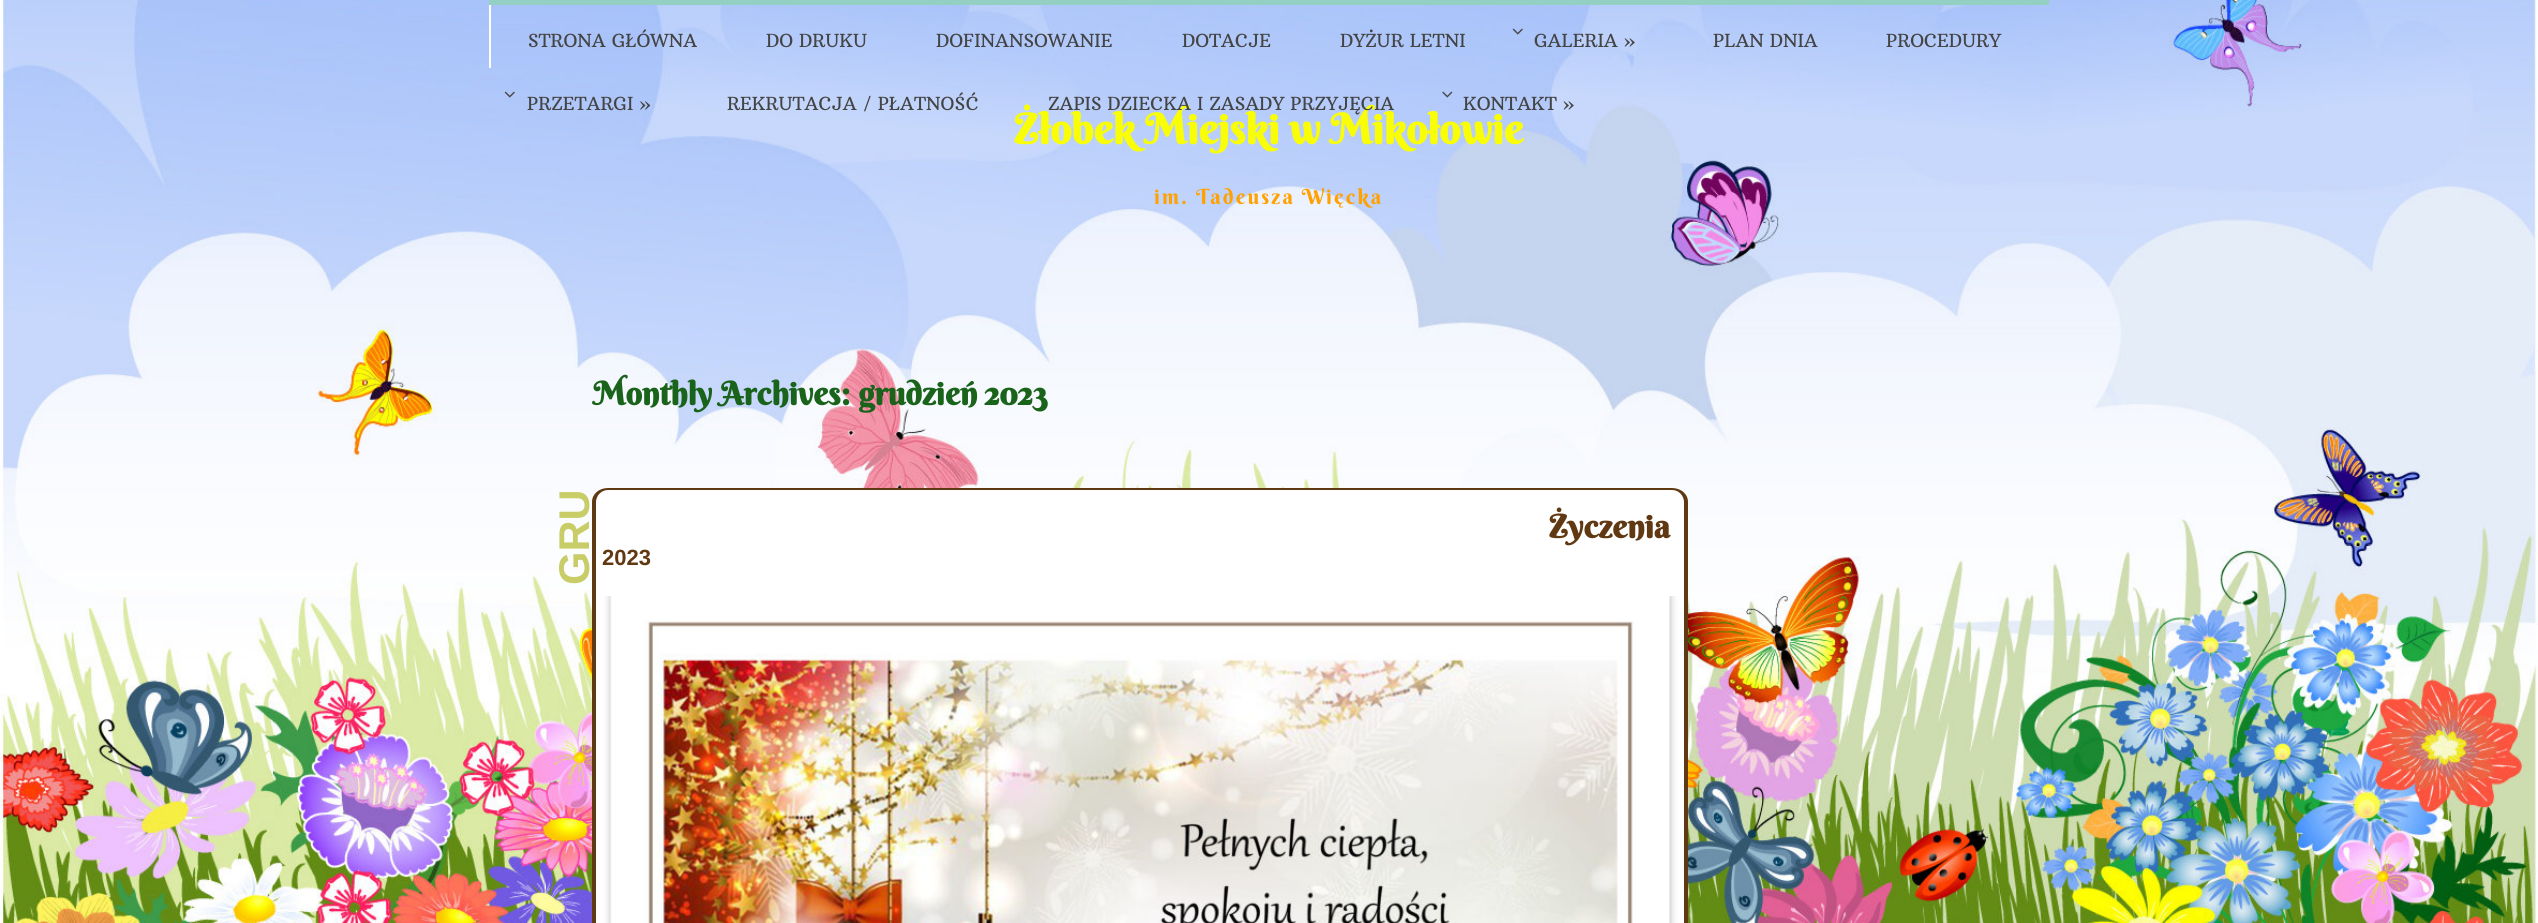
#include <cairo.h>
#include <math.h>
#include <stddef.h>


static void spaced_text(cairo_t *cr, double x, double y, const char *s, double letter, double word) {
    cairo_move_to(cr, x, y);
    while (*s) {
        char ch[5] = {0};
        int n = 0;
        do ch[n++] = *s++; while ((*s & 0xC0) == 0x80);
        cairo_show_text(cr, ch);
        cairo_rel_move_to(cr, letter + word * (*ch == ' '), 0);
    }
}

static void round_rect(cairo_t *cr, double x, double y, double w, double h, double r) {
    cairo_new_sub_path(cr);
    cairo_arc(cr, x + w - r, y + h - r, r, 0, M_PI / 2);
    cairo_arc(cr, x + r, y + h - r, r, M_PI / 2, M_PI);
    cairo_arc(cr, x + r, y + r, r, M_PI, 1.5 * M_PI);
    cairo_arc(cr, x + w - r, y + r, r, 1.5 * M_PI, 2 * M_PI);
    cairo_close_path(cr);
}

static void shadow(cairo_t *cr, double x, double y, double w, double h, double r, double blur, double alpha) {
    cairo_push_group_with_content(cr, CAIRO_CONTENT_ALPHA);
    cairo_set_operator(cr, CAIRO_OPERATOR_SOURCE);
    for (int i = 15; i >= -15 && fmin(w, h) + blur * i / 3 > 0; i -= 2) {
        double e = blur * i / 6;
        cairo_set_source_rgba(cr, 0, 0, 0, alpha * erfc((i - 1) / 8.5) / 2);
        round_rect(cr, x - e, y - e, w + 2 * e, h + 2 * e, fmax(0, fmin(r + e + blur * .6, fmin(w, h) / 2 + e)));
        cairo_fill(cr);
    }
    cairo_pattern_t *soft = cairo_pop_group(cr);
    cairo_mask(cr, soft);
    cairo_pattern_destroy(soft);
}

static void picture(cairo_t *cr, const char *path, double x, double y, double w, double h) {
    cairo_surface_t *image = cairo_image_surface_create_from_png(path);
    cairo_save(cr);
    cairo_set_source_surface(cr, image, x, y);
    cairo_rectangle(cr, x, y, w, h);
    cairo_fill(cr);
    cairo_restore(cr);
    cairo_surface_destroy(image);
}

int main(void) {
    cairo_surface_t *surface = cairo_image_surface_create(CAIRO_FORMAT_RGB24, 2538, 923);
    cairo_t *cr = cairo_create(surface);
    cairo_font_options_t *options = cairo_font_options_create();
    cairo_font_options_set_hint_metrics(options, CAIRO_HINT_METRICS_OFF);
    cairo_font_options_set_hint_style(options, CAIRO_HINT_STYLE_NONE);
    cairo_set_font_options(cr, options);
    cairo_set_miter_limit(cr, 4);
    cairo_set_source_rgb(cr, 1, 1, 1);
    cairo_paint(cr);
    picture(cr, "img1.png", 0, 0, 2538, 923);
    cairo_set_source_rgb(cr, 0.58, 0.812, 0.769);
    cairo_rectangle(cr, 489, 0, 1560, 5);
    cairo_fill(cr);
    cairo_set_source_rgb(cr, 1, 1, 1);
    cairo_rectangle(cr, 489, 5, 2, 63);
    cairo_fill(cr);
    cairo_select_font_face(cr, "Arbutus Slab", CAIRO_FONT_SLANT_NORMAL, CAIRO_FONT_WEIGHT_NORMAL);
    cairo_set_font_size(cr, 18);
    cairo_set_source_rgb(cr, 0.267, 0.267, 0.267);
    cairo_move_to(cr, 528, 47);
    cairo_show_text(cr, "STRONA GŁÓWNA");
    cairo_move_to(cr, 766, 47);
    cairo_show_text(cr, "DO DRUKU");
    cairo_move_to(cr, 936, 47);
    cairo_show_text(cr, "DOFINANSOWANIE");
    cairo_move_to(cr, 1182, 47);
    cairo_show_text(cr, "DOTACJE");
    cairo_move_to(cr, 1340, 47);
    cairo_show_text(cr, "DYŻUR LETNI");
    picture(cr, "img2.png", 1512, 28, 11, 7);
    cairo_move_to(cr, 1534, 47);
    cairo_show_text(cr, "GALERIA »");
    cairo_move_to(cr, 1713, 47);
    cairo_show_text(cr, "PLAN DNIA");
    cairo_move_to(cr, 1886, 47);
    cairo_show_text(cr, "PROCEDURY");
    picture(cr, "img3.png", 504, 91, 11, 7);
    cairo_move_to(cr, 527, 110);
    cairo_show_text(cr, "PRZETARGI »");
    cairo_move_to(cr, 727, 110);
    cairo_show_text(cr, "REKRUTACJA / PŁATNOŚĆ");
    cairo_select_font_face(cr, "Berkshire Swash", CAIRO_FONT_SLANT_NORMAL, CAIRO_FONT_WEIGHT_BOLD);
    cairo_set_font_size(cr, 42);
    cairo_set_source_rgb(cr, 0.973, 0.996, 0.024);
    cairo_move_to(cr, 1014, 144);
    cairo_show_text(cr, "Żłobek Miejski w Mikołowie");
    cairo_select_font_face(cr, "Arbutus Slab", CAIRO_FONT_SLANT_NORMAL, CAIRO_FONT_WEIGHT_NORMAL);
    cairo_set_font_size(cr, 18);
    cairo_set_source_rgb(cr, 0.267, 0.267, 0.267);
    cairo_move_to(cr, 1048, 110);
    cairo_show_text(cr, "ZAPIS DZIECKA I ZASADY PRZYJĘCIA");
    picture(cr, "img4.png", 1442, 91, 11, 7);
    cairo_move_to(cr, 1463, 110);
    cairo_show_text(cr, "KONTAKT »");
    cairo_select_font_face(cr, "Berkshire Swash", CAIRO_FONT_SLANT_NORMAL, CAIRO_FONT_WEIGHT_NORMAL);
    cairo_set_font_size(cr, 21);
    cairo_set_source_rgb(cr, 1, 0.631, 0);
    spaced_text(cr, 1154, 204, "im. Tadeusza Więcka", 2.1, 0);
    cairo_select_font_face(cr, "Berkshire Swash", CAIRO_FONT_SLANT_NORMAL, CAIRO_FONT_WEIGHT_BOLD);
    cairo_set_font_size(cr, 32.4);
    cairo_set_source_rgb(cr, 0.102, 0.388, 0.102);
    cairo_move_to(cr, 593, 405);
    cairo_show_text(cr, "Monthly Archives: grudzień 2023");
    cairo_set_source_rgb(cr, 1, 1, 1);
    cairo_rectangle(cr, 596, 596, 1088, 327);
    cairo_fill(cr);
    cairo_set_source_rgb(cr, 0.376, 0.224, 0.075);
    cairo_set_fill_rule(cr, CAIRO_FILL_RULE_EVEN_ODD);
    cairo_new_path(cr);
    cairo_move_to(cr, 592, 596);
    cairo_line_to(cr, 1688, 596);
    cairo_line_to(cr, 1688, 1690);
    cairo_curve_to(cr, 1688, 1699, 1681, 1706, 1672, 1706);
    cairo_line_to(cr, 608, 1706);
    cairo_curve_to(cr, 599, 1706, 592, 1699, 592, 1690);
    cairo_close_path(cr);
    cairo_move_to(cr, 596, 596);
    cairo_line_to(cr, 1684, 596);
    cairo_line_to(cr, 1684, 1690);
    cairo_curve_to(cr, 1684, 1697, 1679, 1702, 1672, 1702);
    cairo_line_to(cr, 608, 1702);
    cairo_curve_to(cr, 601, 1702, 596, 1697, 596, 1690);
    cairo_close_path(cr);
    cairo_fill(cr);
    cairo_set_source_rgb(cr, 0, 0, 0);
    shadow(cr, 611, 596, 1059, 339, 0, 4, 0.3);
    cairo_set_source_rgb(cr, 1, 1, 1);
    cairo_new_path(cr);
    cairo_move_to(cr, 608, 488);
    cairo_line_to(cr, 1673, 488);
    cairo_curve_to(cr, 1681.5, 488, 1688, 494.5, 1688, 503);
    cairo_line_to(cr, 1688, 596);
    cairo_line_to(cr, 593, 596);
    cairo_line_to(cr, 593, 503);
    cairo_curve_to(cr, 593, 494.5, 599.5, 488, 608, 488);
    cairo_close_path(cr);
    cairo_fill(cr);
    cairo_set_source_rgb(cr, 0.376, 0.224, 0.075);
    cairo_new_path(cr);
    cairo_move_to(cr, 608, 488);
    cairo_line_to(cr, 1672, 488);
    cairo_curve_to(cr, 1681, 488, 1688, 494, 1688, 502);
    cairo_line_to(cr, 1688, 596);
    cairo_line_to(cr, 592, 596);
    cairo_line_to(cr, 592, 502);
    cairo_curve_to(cr, 592, 494, 599, 488, 608, 488);
    cairo_close_path(cr);
    cairo_move_to(cr, 608, 490);
    cairo_line_to(cr, 1672, 490);
    cairo_curve_to(cr, 1679, 490, 1684, 496, 1684, 502);
    cairo_line_to(cr, 1684, 596);
    cairo_line_to(cr, 596, 596);
    cairo_line_to(cr, 596, 502);
    cairo_curve_to(cr, 596, 496, 601, 490, 608, 490);
    cairo_close_path(cr);
    cairo_fill(cr);
    cairo_select_font_face(cr, "Liberation Sans", CAIRO_FONT_SLANT_NORMAL, CAIRO_FONT_WEIGHT_BOLD);
    cairo_set_font_size(cr, 43);
    cairo_set_source_rgb(cr, 0.784, 0.804, 0.404);
    cairo_save(cr);
    cairo_translate(cr, 589, 585);
    cairo_rotate(cr, -90 * M_PI / 180);
    cairo_move_to(cr, 0, 0);
    cairo_show_text(cr, "GRU");
    cairo_restore(cr);
    cairo_set_font_size(cr, 22);
    cairo_set_source_rgb(cr, 0.376, 0.224, 0.075);
    cairo_move_to(cr, 602, 565);
    cairo_show_text(cr, "2023");
    cairo_select_font_face(cr, "Berkshire Swash", CAIRO_FONT_SLANT_NORMAL, CAIRO_FONT_WEIGHT_BOLD);
    cairo_set_font_size(cr, 32.4);
    cairo_move_to(cr, 1549, 538);
    cairo_show_text(cr, "Życzenia");
    picture(cr, "img5.png", 610, 596, 1060, 327);
    cairo_surface_write_to_png(surface, "page.png");
    cairo_font_options_destroy(options);
    cairo_destroy(cr);
    cairo_surface_destroy(surface);
    return 0;
}
